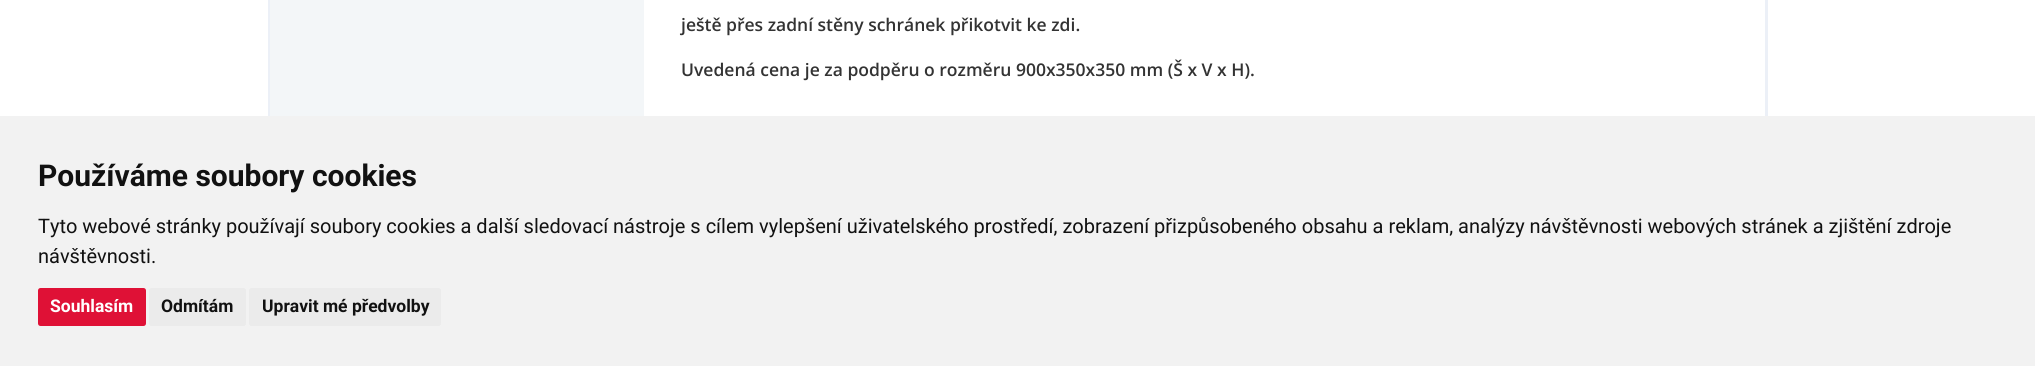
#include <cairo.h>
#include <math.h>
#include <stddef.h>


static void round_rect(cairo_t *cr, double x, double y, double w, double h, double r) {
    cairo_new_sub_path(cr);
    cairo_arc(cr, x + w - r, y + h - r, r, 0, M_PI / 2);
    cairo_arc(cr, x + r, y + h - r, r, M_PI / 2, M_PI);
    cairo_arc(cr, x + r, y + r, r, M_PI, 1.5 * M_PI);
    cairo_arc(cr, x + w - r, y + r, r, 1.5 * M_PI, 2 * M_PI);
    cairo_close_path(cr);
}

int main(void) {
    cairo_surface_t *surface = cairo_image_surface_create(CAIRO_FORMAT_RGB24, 2035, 366);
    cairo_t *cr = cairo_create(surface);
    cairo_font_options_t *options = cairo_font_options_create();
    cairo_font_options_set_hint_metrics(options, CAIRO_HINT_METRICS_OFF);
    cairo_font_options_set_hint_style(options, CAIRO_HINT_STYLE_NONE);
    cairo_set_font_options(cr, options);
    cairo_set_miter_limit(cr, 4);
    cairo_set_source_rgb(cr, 1, 1, 1);
    cairo_paint(cr);
    cairo_rectangle(cr, 269.5, -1.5, 1497, 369);
    cairo_set_source_rgb(cr, 0.922, 0.941, 0.965);
    cairo_set_line_width(cr, 3);
    cairo_stroke(cr);
    cairo_set_source_rgb(cr, 0.953, 0.961, 0.969);
    cairo_rectangle(cr, 270, 0, 374, 116);
    cairo_fill(cr);
    cairo_select_font_face(cr, "Open Sans SemiBold", CAIRO_FONT_SLANT_NORMAL, CAIRO_FONT_WEIGHT_NORMAL);
    cairo_set_font_size(cr, 17.5);
    cairo_set_source_rgb(cr, 0.2, 0.2, 0.2);
    cairo_move_to(cr, 681, 31);
    cairo_show_text(cr, "ještě přes zadní stěny schránek přikotvit ke zdi.");
    cairo_move_to(cr, 681, 76);
    cairo_show_text(cr, "Uvedená cena je za podpěru o rozměru 900x350x350 mm (Š x V x H).");
    cairo_set_source_rgb(cr, 0.949, 0.949, 0.949);
    cairo_rectangle(cr, 0, 116, 2035, 250);
    cairo_fill(cr);
    cairo_select_font_face(cr, "Roboto", CAIRO_FONT_SLANT_NORMAL, CAIRO_FONT_WEIGHT_BOLD);
    cairo_set_font_size(cr, 30);
    cairo_set_source_rgb(cr, 0.067, 0.067, 0.067);
    cairo_move_to(cr, 38, 186);
    cairo_show_text(cr, "Používáme soubory cookies");
    cairo_select_font_face(cr, "Roboto", CAIRO_FONT_SLANT_NORMAL, CAIRO_FONT_WEIGHT_NORMAL);
    cairo_set_font_size(cr, 20);
    cairo_move_to(cr, 38, 233);
    cairo_show_text(cr, "Tyto webové stránky používají soubory cookies a další sledovací nástroje s cílem vylepšení uživatelského prostředí, zobrazení přizpůsobeného obsahu a reklam, analýzy návštěvnosti webových stránek a zjištění zdroje");
    cairo_move_to(cr, 38, 263);
    cairo_show_text(cr, "návštěvnosti.");
    cairo_set_source_rgb(cr, 0.875, 0.067, 0.212);
    round_rect(cr, 38, 288, 108, 38, 2.5);
    cairo_fill(cr);
    cairo_select_font_face(cr, "Roboto", CAIRO_FONT_SLANT_NORMAL, CAIRO_FONT_WEIGHT_BOLD);
    cairo_set_font_size(cr, 17.5);
    cairo_set_source_rgb(cr, 1, 1, 1);
    cairo_move_to(cr, 50, 312);
    cairo_show_text(cr, "Souhlasím");
    cairo_set_source_rgb(cr, 0.918, 0.918, 0.918);
    round_rect(cr, 149, 288, 97, 38, 2.5);
    cairo_fill(cr);
    cairo_set_source_rgb(cr, 0.067, 0.067, 0.067);
    cairo_move_to(cr, 161, 312);
    cairo_show_text(cr, "Odmítám");
    cairo_set_source_rgb(cr, 0.918, 0.918, 0.918);
    round_rect(cr, 249, 288, 192, 38, 2.5);
    cairo_fill(cr);
    cairo_set_source_rgb(cr, 0.067, 0.067, 0.067);
    cairo_move_to(cr, 262, 312);
    cairo_show_text(cr, "Upravit mé předvolby");
    cairo_surface_write_to_png(surface, "page.png");
    cairo_font_options_destroy(options);
    cairo_destroy(cr);
    cairo_surface_destroy(surface);
    return 0;
}
